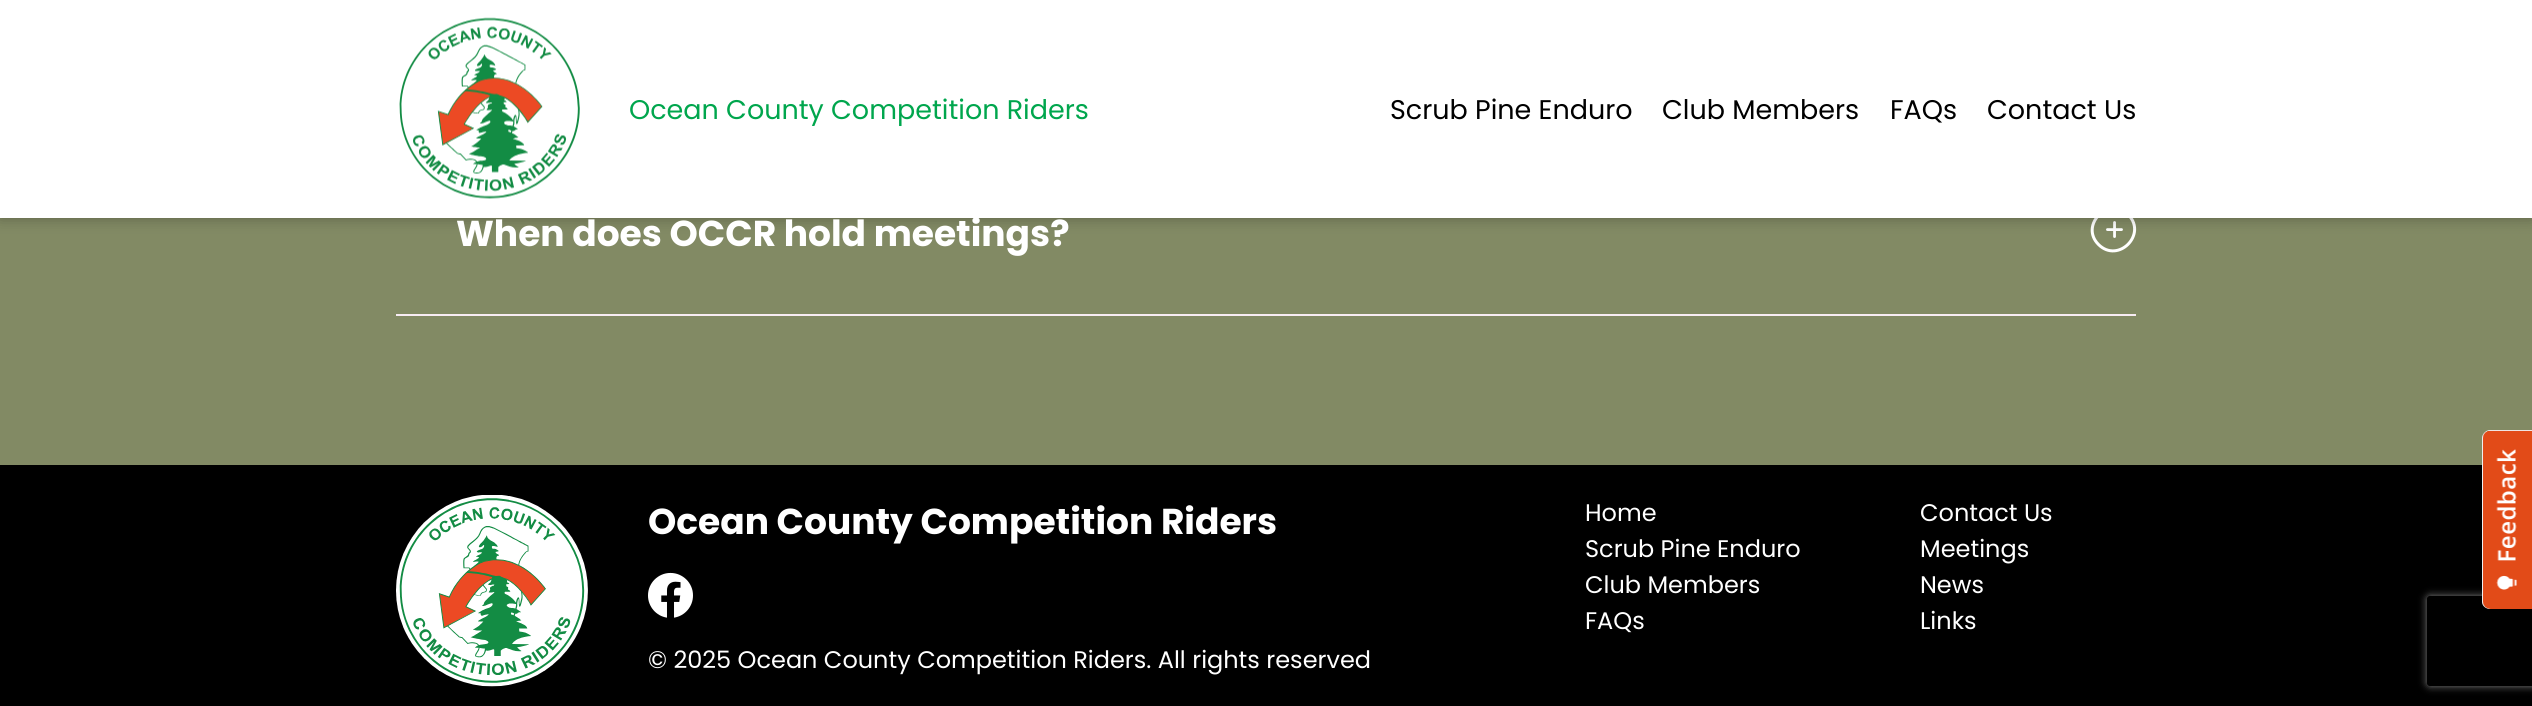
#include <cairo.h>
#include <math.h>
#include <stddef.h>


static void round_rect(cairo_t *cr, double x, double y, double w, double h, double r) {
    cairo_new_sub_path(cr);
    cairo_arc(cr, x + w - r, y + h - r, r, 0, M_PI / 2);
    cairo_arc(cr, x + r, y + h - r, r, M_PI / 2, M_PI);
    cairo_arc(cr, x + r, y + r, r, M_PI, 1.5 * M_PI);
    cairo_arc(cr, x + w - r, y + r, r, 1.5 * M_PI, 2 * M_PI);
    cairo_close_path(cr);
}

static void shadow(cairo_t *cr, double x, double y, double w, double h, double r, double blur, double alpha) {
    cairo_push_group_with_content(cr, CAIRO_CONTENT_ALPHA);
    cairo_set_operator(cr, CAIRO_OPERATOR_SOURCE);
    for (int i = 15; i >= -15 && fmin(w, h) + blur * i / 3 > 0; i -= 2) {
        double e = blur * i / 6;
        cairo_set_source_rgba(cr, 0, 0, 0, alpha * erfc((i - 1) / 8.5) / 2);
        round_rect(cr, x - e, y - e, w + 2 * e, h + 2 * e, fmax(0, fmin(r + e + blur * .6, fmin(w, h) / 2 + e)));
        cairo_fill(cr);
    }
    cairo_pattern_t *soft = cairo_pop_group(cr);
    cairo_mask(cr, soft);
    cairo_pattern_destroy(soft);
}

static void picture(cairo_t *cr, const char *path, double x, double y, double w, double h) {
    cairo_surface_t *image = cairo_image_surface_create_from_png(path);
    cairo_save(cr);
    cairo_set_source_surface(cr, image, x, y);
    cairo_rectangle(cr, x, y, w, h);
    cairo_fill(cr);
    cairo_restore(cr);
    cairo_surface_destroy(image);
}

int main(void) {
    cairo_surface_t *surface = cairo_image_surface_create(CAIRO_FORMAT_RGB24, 2532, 706);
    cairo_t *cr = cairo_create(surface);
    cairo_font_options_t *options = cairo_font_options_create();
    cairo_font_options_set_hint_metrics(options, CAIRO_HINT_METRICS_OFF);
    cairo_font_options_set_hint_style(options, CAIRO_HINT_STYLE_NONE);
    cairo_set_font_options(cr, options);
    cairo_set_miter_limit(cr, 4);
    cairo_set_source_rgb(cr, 0, 0, 0);
    cairo_paint(cr);
    cairo_set_source_rgb(cr, 0.51, 0.541, 0.392);
    cairo_rectangle(cr, 0, 218, 2532, 247);
    cairo_fill(cr);
    cairo_new_path(cr);
    cairo_move_to(cr, 2128.5, 215);
    cairo_curve_to(cr, 2147.5, 234.5, 2118, 264, 2098.5, 244.5);
    cairo_curve_to(cr, 2079, 225, 2109, 195.5, 2128.5, 215);
    cairo_close_path(cr);
    cairo_set_source_rgb(cr, 1, 1, 1);
    cairo_set_line_width(cr, 3);
    cairo_stroke(cr);
    picture(cr, "img2.png", 2106, 221, 17, 17);
    cairo_set_source_rgb(cr, 0, 0, 0);
    shadow(cr, 0, 0, 2532, 218, 0, 7.5, 0.3);
    cairo_set_source_rgb(cr, 1, 1, 1);
    cairo_rectangle(cr, 0, 0, 2532, 218);
    cairo_fill(cr);
    picture(cr, "img1.png", 399, 17, 181, 182);
    cairo_select_font_face(cr, "Poppins", CAIRO_FONT_SLANT_NORMAL, CAIRO_FONT_WEIGHT_NORMAL);
    cairo_set_font_size(cr, 27);
    cairo_set_source_rgb(cr, 0, 0.651, 0.302);
    cairo_move_to(cr, 629, 119);
    cairo_show_text(cr, "Ocean County Competition Riders");
    cairo_set_source_rgb(cr, 0, 0, 0);
    cairo_move_to(cr, 1390, 119);
    cairo_show_text(cr, "Scrub Pine Enduro");
    cairo_move_to(cr, 1662, 119);
    cairo_show_text(cr, "Club Members");
    cairo_move_to(cr, 1890, 119);
    cairo_show_text(cr, "FAQs");
    cairo_move_to(cr, 1987, 119);
    cairo_show_text(cr, "Contact Us");
    cairo_set_source_rgb(cr, 0.965, 0.922, 0.953);
    cairo_rectangle(cr, 396, 314, 1740, 2);
    cairo_fill(cr);
    cairo_select_font_face(cr, "Poppins", CAIRO_FONT_SLANT_NORMAL, CAIRO_FONT_WEIGHT_BOLD);
    cairo_set_font_size(cr, 36);
    cairo_set_source_rgb(cr, 1, 1, 1);
    cairo_move_to(cr, 456, 246);
    cairo_show_text(cr, "When does OCCR hold meetings?");
    cairo_save(cr);
    cairo_set_fill_rule(cr, CAIRO_FILL_RULE_EVEN_ODD);
    cairo_new_path(cr);
    cairo_move_to(cr, 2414, 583);
    cairo_line_to(cr, 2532, 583);
    cairo_line_to(cr, 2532, 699);
    cairo_line_to(cr, 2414, 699);
    cairo_close_path(cr);
    cairo_move_to(cr, 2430, 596);
    cairo_line_to(cr, 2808, 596);
    cairo_curve_to(cr, 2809.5, 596, 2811, 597.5, 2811, 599);
    cairo_line_to(cr, 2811, 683);
    cairo_curve_to(cr, 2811, 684.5, 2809.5, 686, 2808, 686);
    cairo_line_to(cr, 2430, 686);
    cairo_curve_to(cr, 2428.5, 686, 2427, 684.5, 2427, 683);
    cairo_line_to(cr, 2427, 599);
    cairo_curve_to(cr, 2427, 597.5, 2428.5, 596, 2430, 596);
    cairo_close_path(cr);
    cairo_clip(cr);
    cairo_set_source_rgb(cr, 0.502, 0.502, 0.502);
    shadow(cr, 2427, 596, 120, 90, 3, 4, 1);
    cairo_restore(cr);
    picture(cr, "img3.png", 396, 495, 192, 192);
    cairo_move_to(cr, 648, 534);
    cairo_show_text(cr, "Ocean County Competition Riders");
    cairo_select_font_face(cr, "Poppins", CAIRO_FONT_SLANT_NORMAL, CAIRO_FONT_WEIGHT_NORMAL);
    cairo_set_font_size(cr, 24);
    cairo_move_to(cr, 1585, 521);
    cairo_show_text(cr, "Home");
    cairo_move_to(cr, 1920, 521);
    cairo_show_text(cr, "Contact Us");
    cairo_move_to(cr, 1585, 557);
    cairo_show_text(cr, "Scrub Pine Enduro");
    cairo_move_to(cr, 1920, 557);
    cairo_show_text(cr, "Meetings");
    cairo_move_to(cr, 1585, 593);
    cairo_show_text(cr, "Club Members");
    cairo_move_to(cr, 1920, 593);
    cairo_show_text(cr, "News");
    cairo_move_to(cr, 1585, 629);
    cairo_show_text(cr, "FAQs");
    cairo_move_to(cr, 1920, 629);
    cairo_show_text(cr, "Links");
    picture(cr, "img4.png", 648, 572, 45, 46);
    cairo_move_to(cr, 648, 668);
    cairo_show_text(cr, "© 2025 Ocean County Competition Riders. All rights reserved");
    cairo_set_source_rgb(cr, 0.937, 0.937, 0.937);
    cairo_new_path(cr);
    cairo_move_to(cr, 2482, 602);
    cairo_line_to(cr, 2482, 438);
    cairo_curve_to(cr, 2482, 434, 2486, 430, 2490, 430);
    cairo_line_to(cr, 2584, 430);
    cairo_curve_to(cr, 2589, 430, 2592, 434, 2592, 438);
    cairo_line_to(cr, 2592, 602);
    cairo_curve_to(cr, 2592, 606, 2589, 609, 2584, 609);
    cairo_line_to(cr, 2490, 609);
    cairo_curve_to(cr, 2486, 609, 2482, 606, 2482, 602);
    cairo_close_path(cr);
    cairo_fill(cr);
    picture(cr, "img5.png", 2483, 430, 49, 179);
    cairo_surface_write_to_png(surface, "page.png");
    cairo_font_options_destroy(options);
    cairo_destroy(cr);
    cairo_surface_destroy(surface);
    return 0;
}
